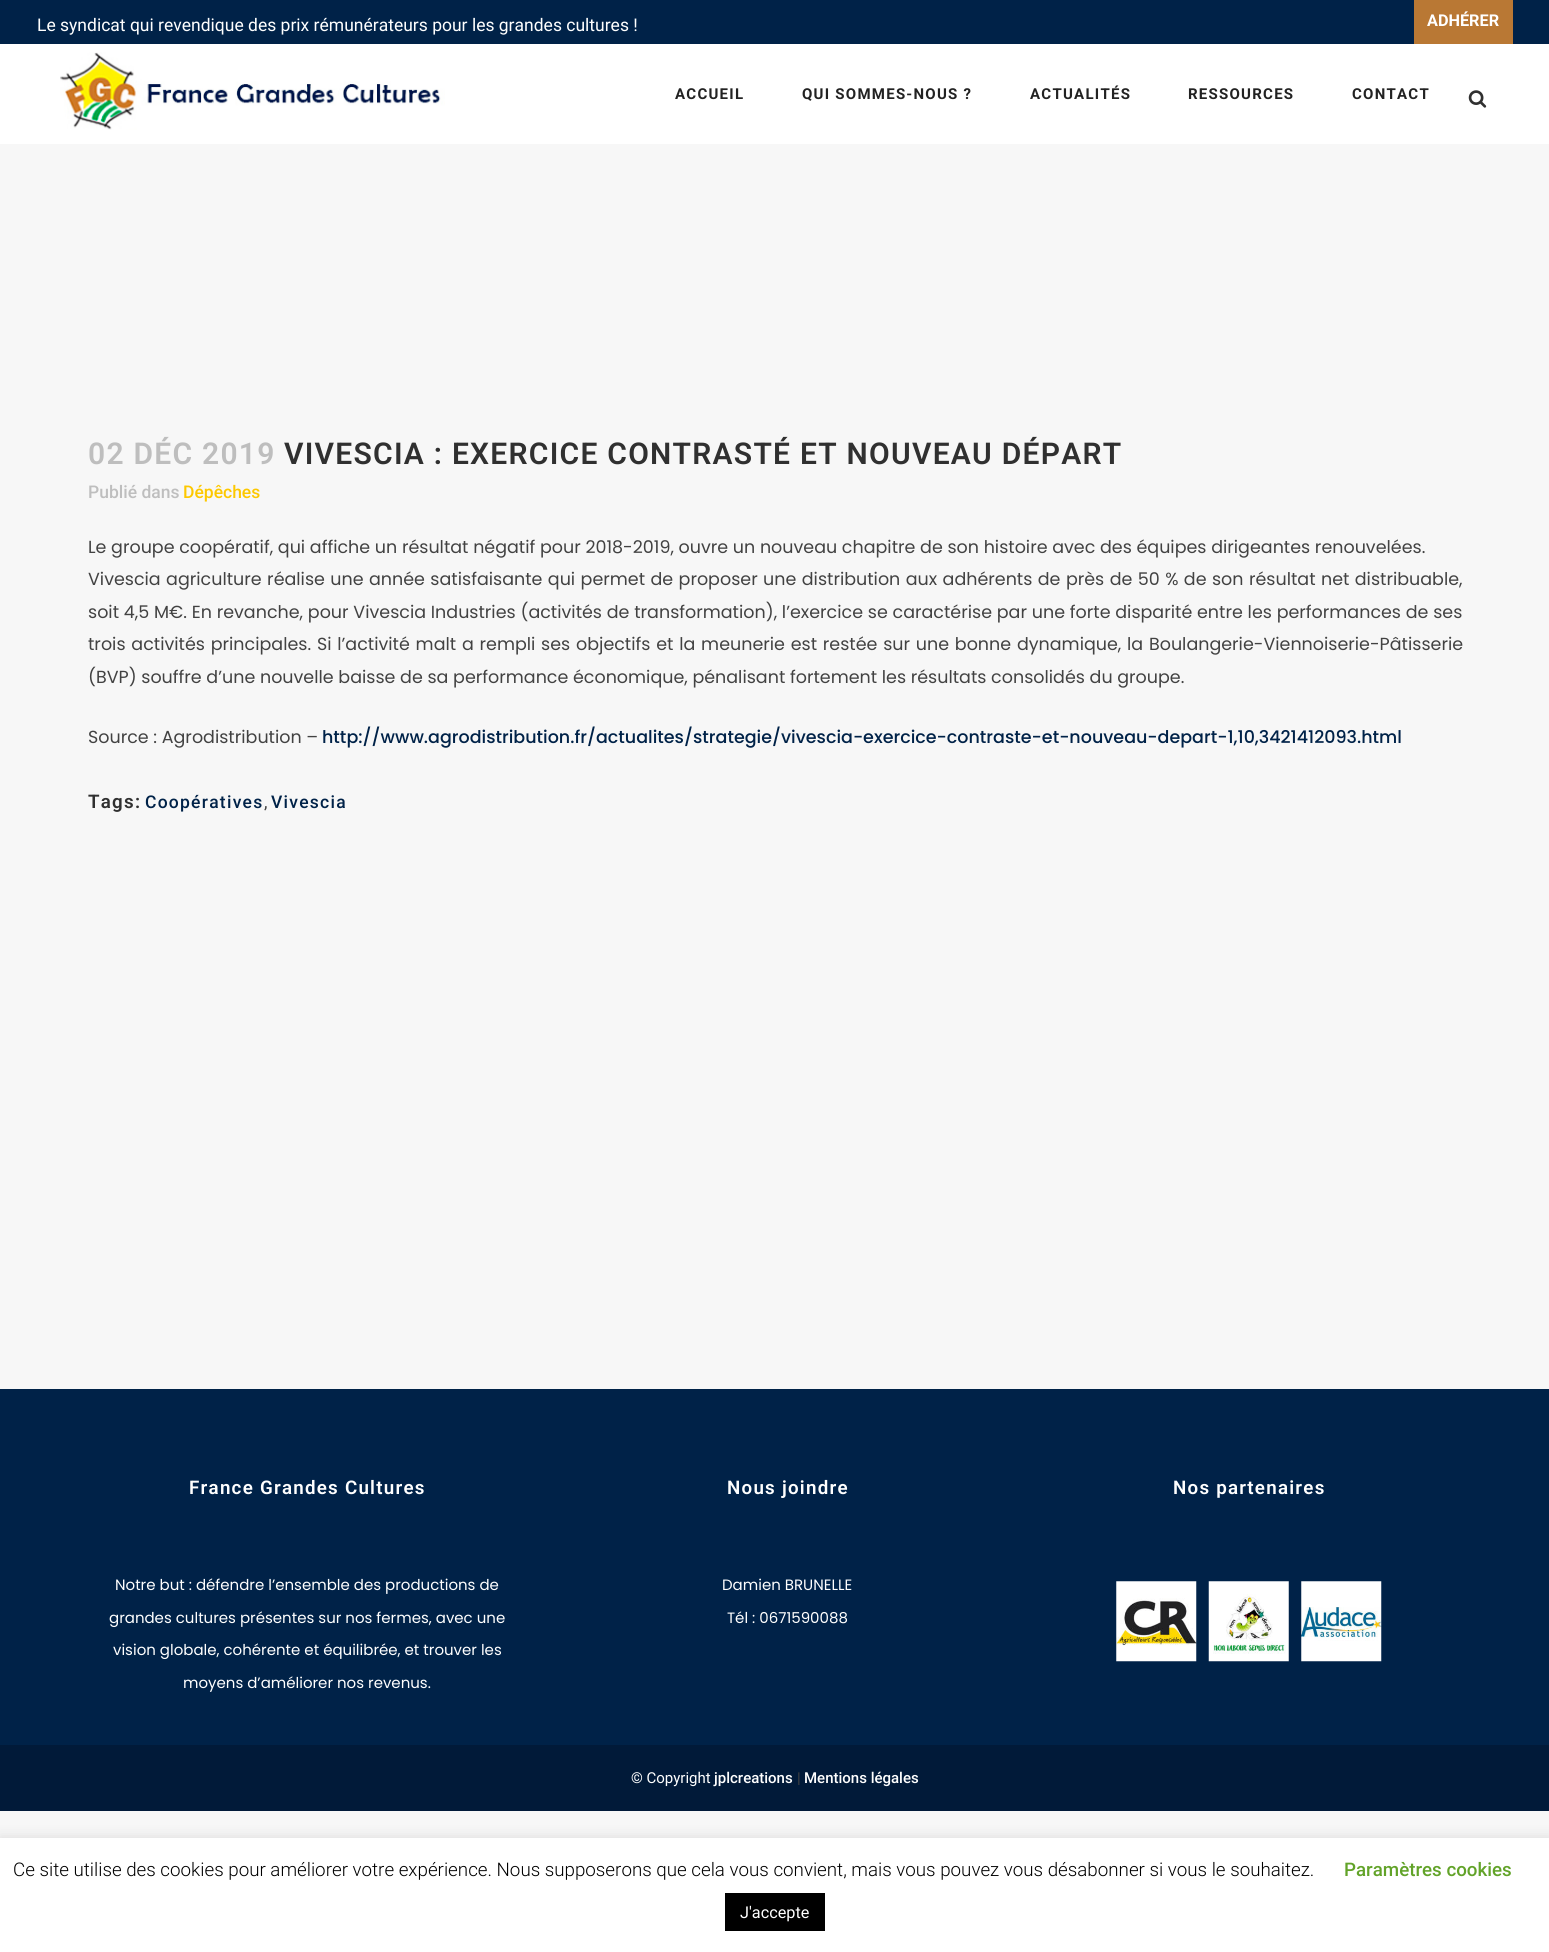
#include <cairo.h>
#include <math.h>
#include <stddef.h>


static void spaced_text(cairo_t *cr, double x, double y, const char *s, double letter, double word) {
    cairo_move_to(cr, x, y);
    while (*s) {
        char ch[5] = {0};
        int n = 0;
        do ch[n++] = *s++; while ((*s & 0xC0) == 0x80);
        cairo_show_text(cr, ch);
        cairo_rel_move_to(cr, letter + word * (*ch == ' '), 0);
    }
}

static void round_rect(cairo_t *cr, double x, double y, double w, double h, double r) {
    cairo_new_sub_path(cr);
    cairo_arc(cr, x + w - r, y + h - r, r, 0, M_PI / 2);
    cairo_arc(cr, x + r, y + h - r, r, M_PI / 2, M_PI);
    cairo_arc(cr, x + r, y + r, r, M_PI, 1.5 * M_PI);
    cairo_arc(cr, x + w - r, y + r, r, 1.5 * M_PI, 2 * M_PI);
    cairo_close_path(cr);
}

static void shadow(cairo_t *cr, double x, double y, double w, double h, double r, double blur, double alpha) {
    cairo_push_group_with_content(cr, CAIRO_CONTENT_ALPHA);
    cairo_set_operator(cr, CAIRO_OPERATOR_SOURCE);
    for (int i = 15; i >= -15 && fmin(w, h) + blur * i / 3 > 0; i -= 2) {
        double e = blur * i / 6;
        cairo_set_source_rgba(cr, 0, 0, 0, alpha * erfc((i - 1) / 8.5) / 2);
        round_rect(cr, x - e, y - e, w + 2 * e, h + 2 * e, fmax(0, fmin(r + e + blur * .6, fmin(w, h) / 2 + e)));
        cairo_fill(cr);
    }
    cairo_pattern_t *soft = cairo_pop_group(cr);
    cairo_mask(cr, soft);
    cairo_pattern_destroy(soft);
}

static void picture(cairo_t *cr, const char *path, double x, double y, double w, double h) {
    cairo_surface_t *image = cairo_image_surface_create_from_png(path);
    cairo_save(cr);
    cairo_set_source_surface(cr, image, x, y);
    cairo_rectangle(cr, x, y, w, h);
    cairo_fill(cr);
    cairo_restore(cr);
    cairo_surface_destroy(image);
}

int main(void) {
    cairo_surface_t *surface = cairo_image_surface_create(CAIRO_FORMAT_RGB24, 1549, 1952);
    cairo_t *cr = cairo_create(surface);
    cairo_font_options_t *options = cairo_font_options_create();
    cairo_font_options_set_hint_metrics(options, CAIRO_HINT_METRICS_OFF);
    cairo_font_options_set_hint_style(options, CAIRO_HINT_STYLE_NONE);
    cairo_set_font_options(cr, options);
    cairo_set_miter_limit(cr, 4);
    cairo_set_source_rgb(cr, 0.965, 0.965, 0.965);
    cairo_paint(cr);
    cairo_set_source_rgb(cr, 0, 0.133, 0.282);
    cairo_rectangle(cr, 0, 0, 1549, 44);
    cairo_fill(cr);
    cairo_select_font_face(cr, "Roboto", CAIRO_FONT_SLANT_NORMAL, CAIRO_FONT_WEIGHT_NORMAL);
    cairo_set_font_size(cr, 17.5);
    cairo_set_source_rgb(cr, 1, 1, 1);
    cairo_move_to(cr, 37, 31);
    cairo_show_text(cr, "Le syndicat qui revendique des prix rémunérateurs pour les grandes cultures !");
    cairo_set_source_rgb(cr, 0.725, 0.471, 0.204);
    cairo_rectangle(cr, 1414, 0, 99, 44);
    cairo_fill(cr);
    cairo_select_font_face(cr, "Roboto", CAIRO_FONT_SLANT_NORMAL, CAIRO_FONT_WEIGHT_BOLD);
    cairo_set_font_size(cr, 16.25);
    cairo_set_source_rgb(cr, 1, 1, 1);
    cairo_move_to(cr, 1427, 26);
    cairo_show_text(cr, "ADHÉRER");
    cairo_rectangle(cr, 0, 44, 1549, 100);
    cairo_fill(cr);
    picture(cr, "img1.png", 60, 52, 385, 78);
    cairo_set_font_size(cr, 15);
    cairo_set_source_rgb(cr, 0.133, 0.133, 0.133);
    spaced_text(cr, 675, 99, "ACCUEIL", 1.25, 0);
    spaced_text(cr, 802, 99, "QUI SOMMES-NOUS ?", 1.25, 0);
    spaced_text(cr, 1030, 99, "ACTUALITÉS", 1.25, 0);
    spaced_text(cr, 1188, 99, "RESSOURCES", 1.25, 0);
    spaced_text(cr, 1352, 99, "CONTACT", 1.25, 0);
    picture(cr, "img2.png", 1468, 90, 19, 18);
    cairo_select_font_face(cr, "Roboto SemiBold", CAIRO_FONT_SLANT_NORMAL, CAIRO_FONT_WEIGHT_NORMAL);
    cairo_set_font_size(cr, 30);
    cairo_set_source_rgb(cr, 0.745, 0.745, 0.745);
    spaced_text(cr, 88, 464, "02 DÉC 2019", 1.25, 0);
    cairo_set_source_rgb(cr, 0.188, 0.188, 0.188);
    spaced_text(cr, 284, 464, "VIVESCIA : EXERCICE CONTRASTÉ ET NOUVEAU DÉPART", 1.25, 0);
    cairo_select_font_face(cr, "Roboto Medium", CAIRO_FONT_SLANT_NORMAL, CAIRO_FONT_WEIGHT_NORMAL);
    cairo_set_font_size(cr, 17.5);
    cairo_set_source_rgb(cr, 0.745, 0.745, 0.745);
    cairo_move_to(cr, 88, 498);
    cairo_show_text(cr, "Publié dans");
    cairo_set_source_rgb(cr, 0.992, 0.784, 0);
    cairo_move_to(cr, 183, 498);
    cairo_show_text(cr, "Dépêches");
    cairo_select_font_face(cr, "Poppins", CAIRO_FONT_SLANT_NORMAL, CAIRO_FONT_WEIGHT_NORMAL);
    cairo_set_source_rgb(cr, 0.259, 0.259, 0.259);
    cairo_move_to(cr, 88, 553);
    cairo_show_text(cr, "Le groupe coopératif, qui affiche un résultat négatif pour 2018-2019, ouvre un nouveau chapitre de son histoire avec des équipes dirigeantes renouvelées.");
    spaced_text(cr, 88, 585, "Vivescia agriculture réalise une année satisfaisante qui permet de proposer une distribution aux adhérents de près de 50 % de son résultat net distribuable,", 0, 0.75);
    spaced_text(cr, 88, 618, "soit 4,5 M€. En revanche, pour Vivescia Industries (activités de transformation), l’exercice se caractérise par une forte disparité entre les performances de ses", 0, 0.1);
    spaced_text(cr, 88, 650, "trois activités principales. Si l’activité malt a rempli ses objectifs et la meunerie est restée sur une bonne dynamique, la Boulangerie-Viennoiserie-Pâtisserie", 0, 1.1);
    cairo_move_to(cr, 88, 683);
    cairo_show_text(cr, "(BVP) souffre d’une nouvelle baisse de sa performance économique, pénalisant fortement les résultats consolidés du groupe.");
    cairo_move_to(cr, 88, 743);
    cairo_show_text(cr, "Source : Agrodistribution –");
    cairo_select_font_face(cr, "Poppins Medium", CAIRO_FONT_SLANT_NORMAL, CAIRO_FONT_WEIGHT_NORMAL);
    cairo_set_source_rgb(cr, 0, 0.133, 0.282);
    cairo_move_to(cr, 322, 743);
    cairo_show_text(cr, "http://www.agrodistribution.fr/actualites/strategie/vivescia-exercice-contraste-et-nouveau-depart-1,10,3421412093.html");
    cairo_select_font_face(cr, "Roboto SemiBold", CAIRO_FONT_SLANT_NORMAL, CAIRO_FONT_WEIGHT_NORMAL);
    cairo_set_font_size(cr, 18.75);
    cairo_set_source_rgb(cr, 0.188, 0.188, 0.188);
    spaced_text(cr, 88, 808, "Tags:", 1.25, 0);
    cairo_select_font_face(cr, "Roboto Medium", CAIRO_FONT_SLANT_NORMAL, CAIRO_FONT_WEIGHT_NORMAL);
    cairo_set_font_size(cr, 17.5);
    cairo_set_source_rgb(cr, 0, 0.133, 0.282);
    spaced_text(cr, 145, 808, "Coopératives", 1.25, 0);
    cairo_select_font_face(cr, "Roboto", CAIRO_FONT_SLANT_NORMAL, CAIRO_FONT_WEIGHT_NORMAL);
    cairo_set_source_rgb(cr, 0.259, 0.259, 0.259);
    cairo_move_to(cr, 264, 808);
    cairo_show_text(cr, ",");
    cairo_select_font_face(cr, "Roboto Medium", CAIRO_FONT_SLANT_NORMAL, CAIRO_FONT_WEIGHT_NORMAL);
    cairo_set_source_rgb(cr, 0, 0.133, 0.282);
    spaced_text(cr, 271, 808, "Vivescia", 1.25, 0);
    cairo_rectangle(cr, 0, 1389, 1549, 356);
    cairo_fill(cr);
    cairo_select_font_face(cr, "Roboto SemiBold", CAIRO_FONT_SLANT_NORMAL, CAIRO_FONT_WEIGHT_NORMAL);
    cairo_set_font_size(cr, 18.75);
    cairo_set_source_rgb(cr, 1, 1, 1);
    spaced_text(cr, 189, 1494, "France Grandes Cultures", 1.25, 0);
    cairo_select_font_face(cr, "Poppins", CAIRO_FONT_SLANT_NORMAL, CAIRO_FONT_WEIGHT_NORMAL);
    cairo_set_font_size(cr, 15);
    cairo_move_to(cr, 115, 1590);
    cairo_show_text(cr, "Notre but : défendre l’ensemble des productions de");
    cairo_move_to(cr, 109, 1623);
    cairo_show_text(cr, "grandes cultures présentes sur nos fermes, avec une");
    cairo_move_to(cr, 113, 1655);
    cairo_show_text(cr, "vision globale, cohérente et équilibrée, et trouver les");
    cairo_move_to(cr, 183, 1688);
    cairo_show_text(cr, "moyens d’améliorer nos revenus.");
    cairo_select_font_face(cr, "Roboto SemiBold", CAIRO_FONT_SLANT_NORMAL, CAIRO_FONT_WEIGHT_NORMAL);
    cairo_set_font_size(cr, 18.75);
    spaced_text(cr, 727, 1494, "Nous joindre", 1.25, 0);
    cairo_select_font_face(cr, "Poppins", CAIRO_FONT_SLANT_NORMAL, CAIRO_FONT_WEIGHT_NORMAL);
    cairo_set_font_size(cr, 15);
    cairo_move_to(cr, 722, 1590);
    cairo_show_text(cr, "Damien BRUNELLE");
    cairo_move_to(cr, 727, 1623);
    cairo_show_text(cr, "Tél : 0671590088");
    cairo_select_font_face(cr, "Roboto SemiBold", CAIRO_FONT_SLANT_NORMAL, CAIRO_FONT_WEIGHT_NORMAL);
    cairo_set_font_size(cr, 18.75);
    spaced_text(cr, 1173, 1494, "Nos partenaires", 1.25, 0);
    picture(cr, "img3.png", 1116, 1581, 81, 81);
    picture(cr, "img4.png", 1208, 1581, 81, 81);
    picture(cr, "img5.png", 1301, 1581, 81, 81);
    cairo_set_source_rgb(cr, 0.004, 0.102, 0.224);
    cairo_rectangle(cr, 0, 1745, 1549, 66);
    cairo_fill(cr);
    cairo_select_font_face(cr, "Roboto", CAIRO_FONT_SLANT_NORMAL, CAIRO_FONT_WEIGHT_NORMAL);
    cairo_set_font_size(cr, 15);
    cairo_set_source_rgb(cr, 1, 1, 1);
    cairo_move_to(cr, 631, 1783);
    cairo_show_text(cr, "© Copyright");
    cairo_select_font_face(cr, "Roboto Medium", CAIRO_FONT_SLANT_NORMAL, CAIRO_FONT_WEIGHT_NORMAL);
    cairo_move_to(cr, 714, 1783);
    cairo_show_text(cr, "jplcreations");
    cairo_select_font_face(cr, "Roboto", CAIRO_FONT_SLANT_NORMAL, CAIRO_FONT_WEIGHT_NORMAL);
    cairo_set_source_rgb(cr, 0.259, 0.259, 0.259);
    cairo_move_to(cr, 797, 1783);
    cairo_show_text(cr, "|");
    cairo_select_font_face(cr, "Roboto Medium", CAIRO_FONT_SLANT_NORMAL, CAIRO_FONT_WEIGHT_NORMAL);
    cairo_set_source_rgb(cr, 1, 1, 1);
    cairo_move_to(cr, 804, 1783);
    cairo_show_text(cr, "Mentions légales");
    cairo_set_source_rgb(cr, 0.675, 0.671, 0.671);
    shadow(cr, 0, 1836, 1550, 115, 0, 6, 0.3);
    cairo_set_source_rgb(cr, 1, 1, 1);
    cairo_rectangle(cr, 0, 1838, 1549, 114);
    cairo_fill(cr);
    cairo_select_font_face(cr, "Roboto Light", CAIRO_FONT_SLANT_NORMAL, CAIRO_FONT_WEIGHT_NORMAL);
    cairo_set_font_size(cr, 18.75);
    cairo_set_source_rgb(cr, 0, 0, 0);
    cairo_move_to(cr, 13, 1876);
    cairo_show_text(cr, "Ce site utilise des cookies pour améliorer votre expérience. Nous supposerons que cela vous convient, mais vous pouvez vous désabonner si vous le souhaitez.");
    cairo_select_font_face(cr, "Roboto Medium", CAIRO_FONT_SLANT_NORMAL, CAIRO_FONT_WEIGHT_NORMAL);
    cairo_set_source_rgb(cr, 0.384, 0.639, 0.161);
    cairo_move_to(cr, 1344, 1876);
    cairo_show_text(cr, "Paramètres cookies");
    cairo_set_source_rgb(cr, 0, 0, 0);
    cairo_rectangle(cr, 725, 1893, 100, 38);
    cairo_fill(cr);
    cairo_select_font_face(cr, "Roboto", CAIRO_FONT_SLANT_NORMAL, CAIRO_FONT_WEIGHT_NORMAL);
    cairo_set_font_size(cr, 16.25);
    cairo_set_source_rgb(cr, 1, 1, 1);
    cairo_move_to(cr, 740, 1918);
    cairo_show_text(cr, "J'accepte");
    cairo_surface_write_to_png(surface, "page.png");
    cairo_font_options_destroy(options);
    cairo_destroy(cr);
    cairo_surface_destroy(surface);
    return 0;
}
